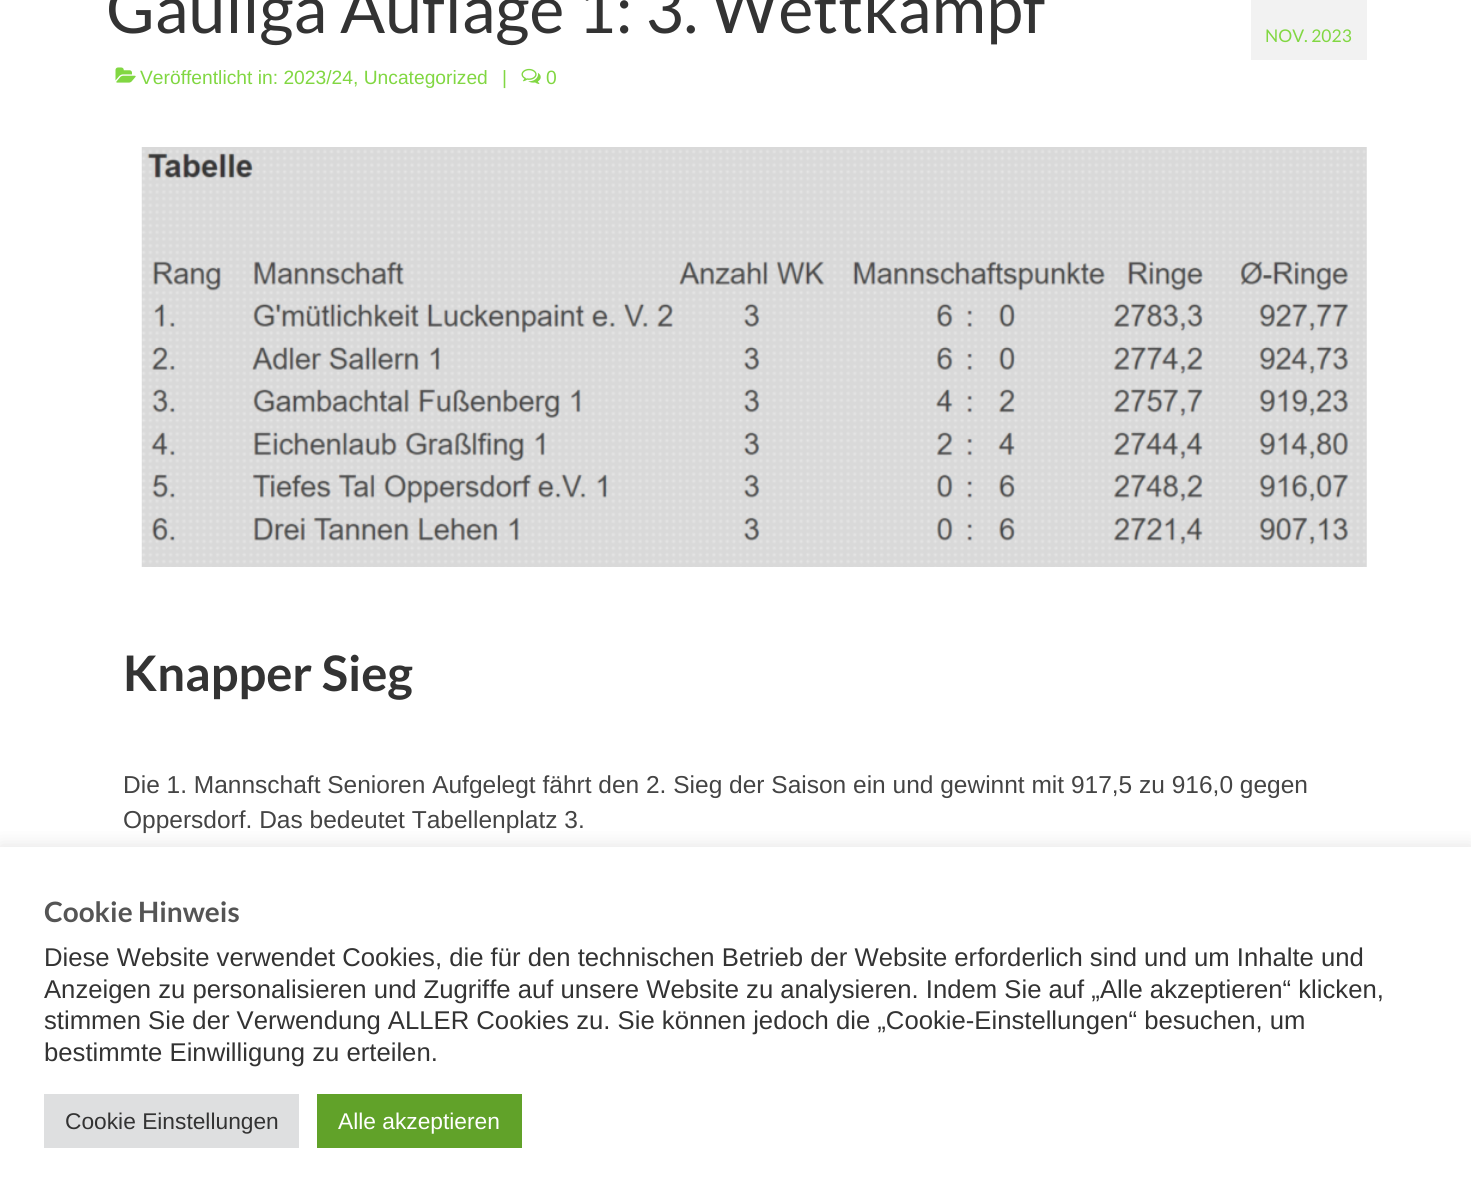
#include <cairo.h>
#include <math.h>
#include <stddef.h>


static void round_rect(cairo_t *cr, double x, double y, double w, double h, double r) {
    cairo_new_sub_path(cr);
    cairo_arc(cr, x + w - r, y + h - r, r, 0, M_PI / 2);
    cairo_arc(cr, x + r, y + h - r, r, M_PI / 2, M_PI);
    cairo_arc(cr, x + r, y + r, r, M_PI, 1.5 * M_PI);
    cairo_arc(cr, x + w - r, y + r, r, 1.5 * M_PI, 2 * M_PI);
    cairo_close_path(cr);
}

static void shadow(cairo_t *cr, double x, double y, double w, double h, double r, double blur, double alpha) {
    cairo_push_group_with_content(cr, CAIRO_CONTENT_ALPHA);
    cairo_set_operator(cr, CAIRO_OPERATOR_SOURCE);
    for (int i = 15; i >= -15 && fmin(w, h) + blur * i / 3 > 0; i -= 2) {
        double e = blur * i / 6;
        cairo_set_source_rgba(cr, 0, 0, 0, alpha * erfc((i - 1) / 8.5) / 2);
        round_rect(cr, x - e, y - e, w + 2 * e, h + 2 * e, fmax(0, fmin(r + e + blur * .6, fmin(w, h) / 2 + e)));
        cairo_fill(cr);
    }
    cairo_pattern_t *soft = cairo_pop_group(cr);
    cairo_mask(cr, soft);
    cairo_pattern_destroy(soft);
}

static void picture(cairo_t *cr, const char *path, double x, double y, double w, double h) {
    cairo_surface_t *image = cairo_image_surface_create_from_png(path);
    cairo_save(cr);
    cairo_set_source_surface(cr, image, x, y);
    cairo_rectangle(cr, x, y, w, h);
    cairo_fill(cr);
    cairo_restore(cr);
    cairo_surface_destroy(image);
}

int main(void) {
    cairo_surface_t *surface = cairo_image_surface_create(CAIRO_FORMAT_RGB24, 1471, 1200);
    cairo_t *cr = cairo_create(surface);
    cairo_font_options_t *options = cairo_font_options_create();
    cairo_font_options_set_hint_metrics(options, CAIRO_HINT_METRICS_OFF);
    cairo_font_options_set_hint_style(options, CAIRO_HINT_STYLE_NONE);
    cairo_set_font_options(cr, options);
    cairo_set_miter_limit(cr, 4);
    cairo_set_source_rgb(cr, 1, 1, 1);
    cairo_paint(cr);
    cairo_select_font_face(cr, "Lato", CAIRO_FONT_SLANT_NORMAL, CAIRO_FONT_WEIGHT_NORMAL);
    cairo_set_font_size(cr, 66.5);
    cairo_set_source_rgb(cr, 0.2, 0.2, 0.2);
    cairo_move_to(cr, 106, 33);
    cairo_show_text(cr, "Gauliga Auflage 1: 3. Wettkampf");
    picture(cr, "img1.png", 115, 67, 21, 16);
    cairo_select_font_face(cr, "Liberation Sans", CAIRO_FONT_SLANT_NORMAL, CAIRO_FONT_WEIGHT_NORMAL);
    cairo_set_font_size(cr, 19.25);
    cairo_set_source_rgb(cr, 0.506, 0.843, 0.259);
    cairo_move_to(cr, 140, 84);
    cairo_show_text(cr, "Veröffentlicht in: 2023/24, Uncategorized");
    cairo_move_to(cr, 502, 84);
    cairo_show_text(cr, "|");
    picture(cr, "img2.png", 521, 68, 20, 16);
    cairo_move_to(cr, 546, 84);
    cairo_show_text(cr, "0");
    cairo_set_source_rgb(cr, 0.949, 0.949, 0.949);
    cairo_rectangle(cr, 1251, 0, 116, 60);
    cairo_fill(cr);
    cairo_select_font_face(cr, "Lato", CAIRO_FONT_SLANT_NORMAL, CAIRO_FONT_WEIGHT_NORMAL);
    cairo_set_font_size(cr, 17.5);
    cairo_set_source_rgb(cr, 0.506, 0.843, 0.259);
    cairo_move_to(cr, 1265, 42);
    cairo_show_text(cr, "NOV. 2023");
    picture(cr, "img3.png", 141, 147, 1226, 420);
    cairo_select_font_face(cr, "Lato", CAIRO_FONT_SLANT_NORMAL, CAIRO_FONT_WEIGHT_BOLD);
    cairo_set_font_size(cr, 49);
    cairo_set_source_rgb(cr, 0.2, 0.2, 0.2);
    cairo_move_to(cr, 123, 691);
    cairo_show_text(cr, "Knapper Sieg");
    cairo_select_font_face(cr, "Liberation Sans", CAIRO_FONT_SLANT_NORMAL, CAIRO_FONT_WEIGHT_NORMAL);
    cairo_set_font_size(cr, 24.5);
    cairo_set_source_rgb(cr, 0.267, 0.267, 0.267);
    cairo_move_to(cr, 123, 793);
    cairo_show_text(cr, "Die 1. Mannschaft Senioren Aufgelegt fährt den 2. Sieg der Saison ein und gewinnt mit 917,5 zu 916,0 gegen");
    cairo_move_to(cr, 123, 828);
    cairo_show_text(cr, "Oppersdorf. Das bedeutet Tabellenplatz 3.");
    cairo_save(cr);
    cairo_rectangle(cr, 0, 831, 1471, 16);
    cairo_clip(cr);
    cairo_set_source_rgb(cr, 0.675, 0.671, 0.671);
    shadow(cr, 0, 845, 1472, 354, 0, 9, 0.3);
    cairo_restore(cr);
    cairo_select_font_face(cr, "Lato", CAIRO_FONT_SLANT_NORMAL, CAIRO_FONT_WEIGHT_BOLD);
    cairo_set_font_size(cr, 28);
    cairo_set_source_rgb(cr, 0.333, 0.333, 0.333);
    cairo_move_to(cr, 44, 922);
    cairo_show_text(cr, "Cookie Hinweis");
    cairo_select_font_face(cr, "Liberation Sans", CAIRO_FONT_SLANT_NORMAL, CAIRO_FONT_WEIGHT_NORMAL);
    cairo_set_font_size(cr, 25.67);
    cairo_set_source_rgb(cr, 0.2, 0.2, 0.2);
    cairo_move_to(cr, 44, 966);
    cairo_show_text(cr, "Diese Website verwendet Cookies, die für den technischen Betrieb der Website erforderlich sind und um Inhalte und");
    cairo_move_to(cr, 44, 998);
    cairo_show_text(cr, "Anzeigen zu personalisieren und Zugriffe auf unsere Website zu analysieren. Indem Sie auf „Alle akzeptieren“ klicken,");
    cairo_move_to(cr, 44, 1029);
    cairo_show_text(cr, "stimmen Sie der Verwendung ALLER Cookies zu. Sie können jedoch die „Cookie-Einstellungen“ besuchen, um");
    cairo_move_to(cr, 44, 1061);
    cairo_show_text(cr, "bestimmte Einwilligung zu erteilen.");
    cairo_set_source_rgb(cr, 0.871, 0.875, 0.878);
    cairo_rectangle(cr, 44, 1094, 255, 54);
    cairo_fill(cr);
    cairo_set_font_size(cr, 22.75);
    cairo_set_source_rgb(cr, 0.2, 0.2, 0.2);
    cairo_move_to(cr, 65, 1129);
    cairo_show_text(cr, "Cookie Einstellungen");
    cairo_set_source_rgb(cr, 0.38, 0.635, 0.161);
    cairo_rectangle(cr, 317, 1094, 205, 54);
    cairo_fill(cr);
    cairo_set_source_rgb(cr, 1, 1, 1);
    cairo_move_to(cr, 338, 1129);
    cairo_show_text(cr, "Alle akzeptieren");
    cairo_surface_write_to_png(surface, "page.png");
    cairo_font_options_destroy(options);
    cairo_destroy(cr);
    cairo_surface_destroy(surface);
    return 0;
}
